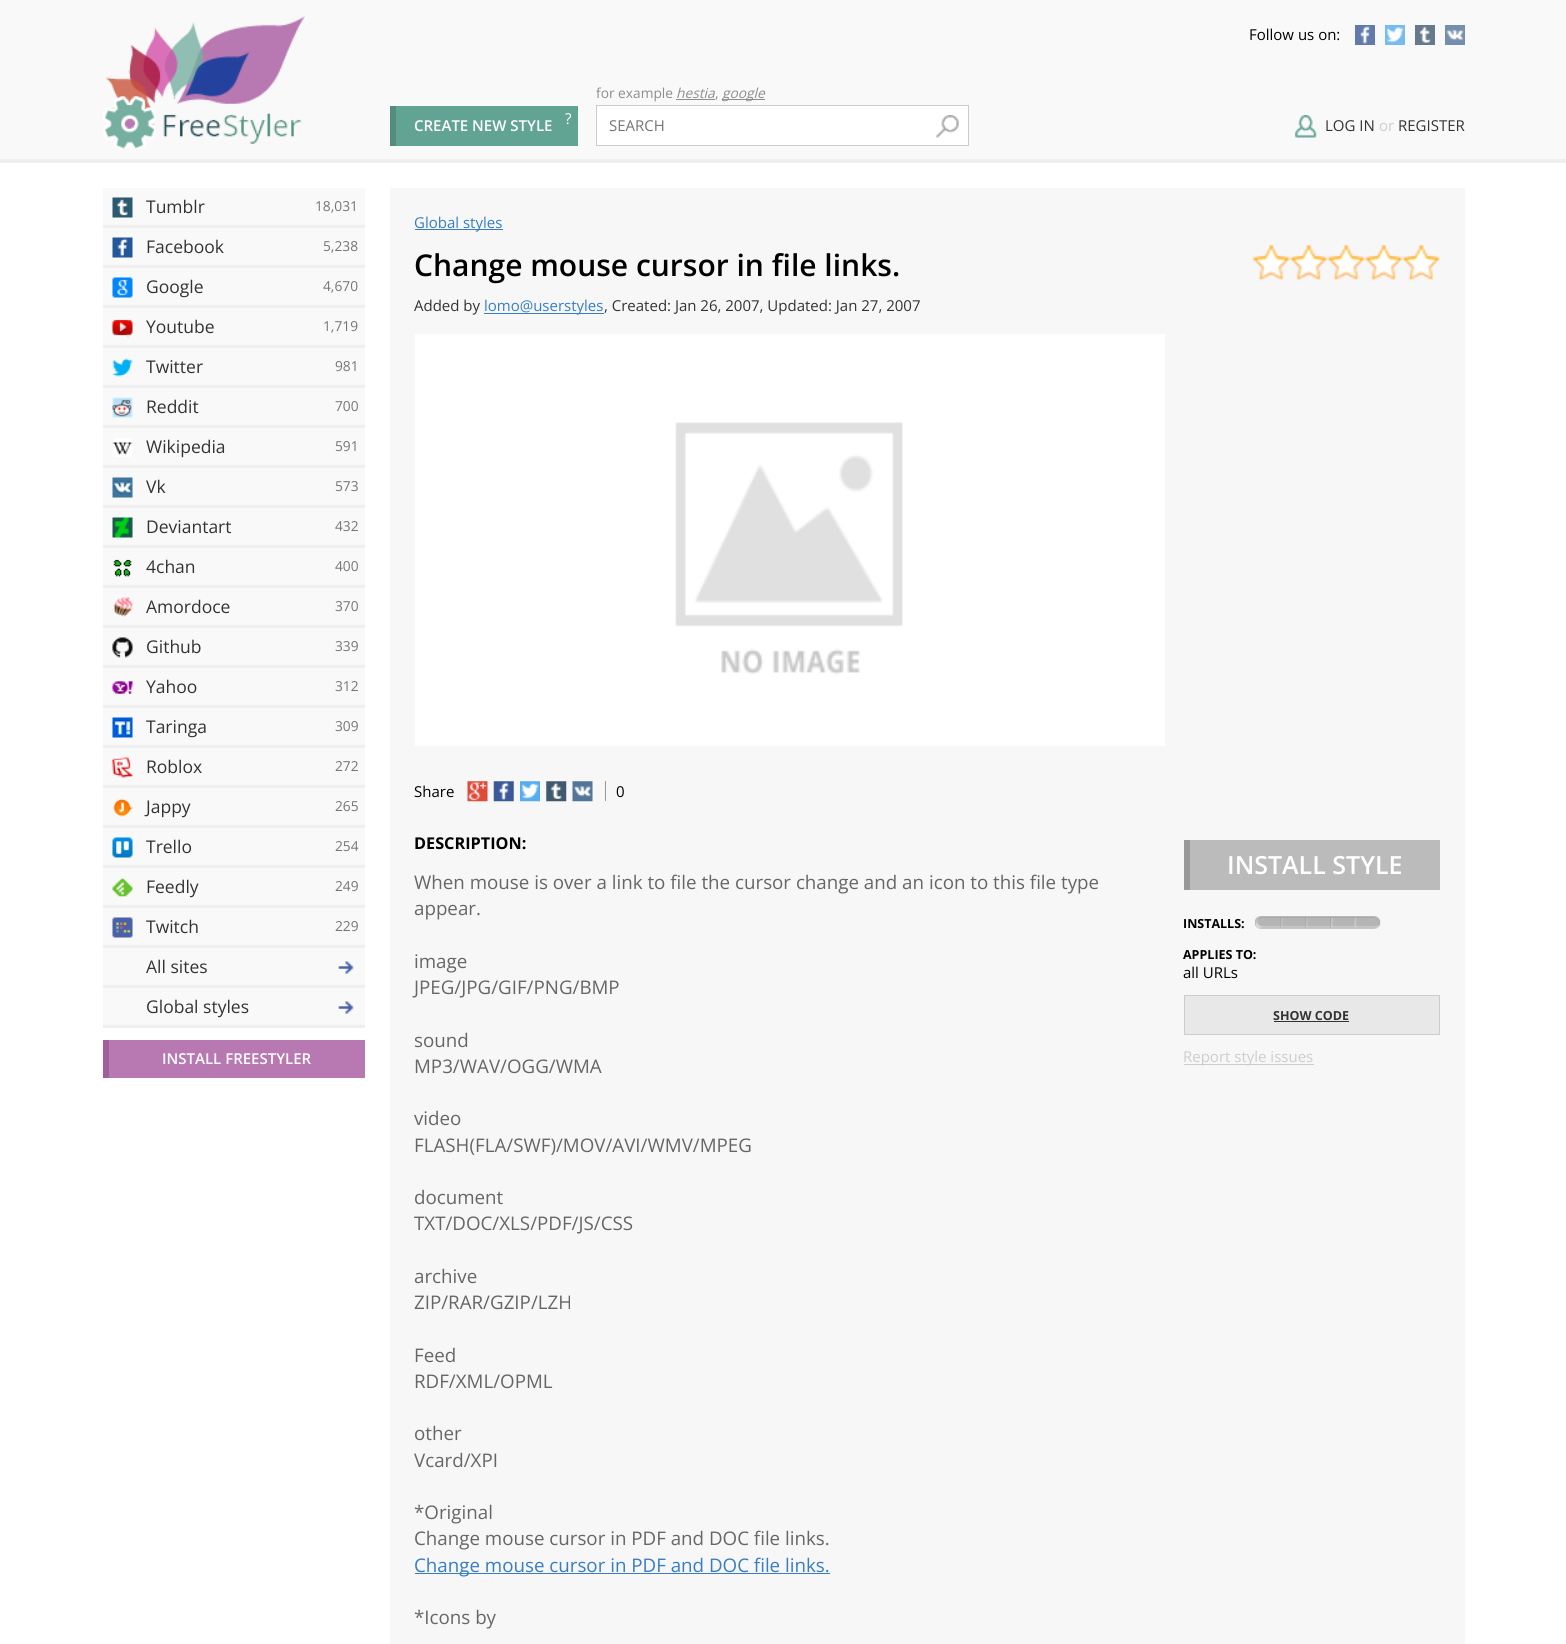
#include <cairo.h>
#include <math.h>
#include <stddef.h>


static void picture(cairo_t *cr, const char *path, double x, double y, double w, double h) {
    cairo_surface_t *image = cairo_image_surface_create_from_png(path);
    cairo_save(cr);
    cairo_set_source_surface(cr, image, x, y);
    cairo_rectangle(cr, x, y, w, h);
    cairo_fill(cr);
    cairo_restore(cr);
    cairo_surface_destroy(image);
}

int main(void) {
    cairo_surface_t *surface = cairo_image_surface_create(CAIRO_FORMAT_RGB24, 1566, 1644);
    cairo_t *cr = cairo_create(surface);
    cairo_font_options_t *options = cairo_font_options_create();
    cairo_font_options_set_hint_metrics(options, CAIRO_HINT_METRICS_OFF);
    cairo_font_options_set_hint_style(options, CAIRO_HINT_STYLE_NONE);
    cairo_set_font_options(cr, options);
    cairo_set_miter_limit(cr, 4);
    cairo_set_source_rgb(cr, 1, 1, 1);
    cairo_paint(cr);
    cairo_set_source_rgb(cr, 0.976, 0.976, 0.976);
    cairo_rectangle(cr, 0, 0, 1566, 159);
    cairo_fill(cr);
    cairo_set_source_rgb(cr, 0.933, 0.933, 0.933);
    cairo_rectangle(cr, 0, 159, 1566, 4);
    cairo_fill(cr);
    picture(cr, "img1.png", 103, 16, 202, 133);
    cairo_select_font_face(cr, "Open Sans", CAIRO_FONT_SLANT_NORMAL, CAIRO_FONT_WEIGHT_NORMAL);
    cairo_set_font_size(cr, 15);
    cairo_set_source_rgb(cr, 0, 0, 0);
    cairo_move_to(cr, 1249, 40);
    cairo_show_text(cr, "Follow us on:");
    picture(cr, "img2.png", 1355, 25, 20, 20);
    picture(cr, "img3.png", 1385, 25, 20, 20);
    picture(cr, "img4.png", 1415, 25, 20, 20);
    picture(cr, "img5.png", 1445, 25, 20, 20);
    cairo_set_source_rgb(cr, 0.384, 0.643, 0.58);
    cairo_rectangle(cr, 396, 106, 182, 40);
    cairo_fill(cr);
    cairo_set_source_rgb(cr, 0.325, 0.549, 0.494);
    cairo_rectangle(cr, 390, 106, 6, 40);
    cairo_fill(cr);
    cairo_select_font_face(cr, "Open Sans SemiBold", CAIRO_FONT_SLANT_NORMAL, CAIRO_FONT_WEIGHT_NORMAL);
    cairo_set_source_rgb(cr, 1, 1, 1);
    cairo_move_to(cr, 414, 131);
    cairo_show_text(cr, "CREATE NEW STYLE");
    cairo_select_font_face(cr, "Open Sans", CAIRO_FONT_SLANT_NORMAL, CAIRO_FONT_WEIGHT_NORMAL);
    cairo_move_to(cr, 565, 124);
    cairo_show_text(cr, "?");
    cairo_set_font_size(cr, 13.75);
    cairo_set_source_rgb(cr, 0.553, 0.553, 0.553);
    cairo_move_to(cr, 596, 98);
    cairo_show_text(cr, "for example");
    cairo_select_font_face(cr, "Open Sans", CAIRO_FONT_SLANT_ITALIC, CAIRO_FONT_WEIGHT_NORMAL);
    cairo_move_to(cr, 676, 98);
    cairo_show_text(cr, "hestia");
    cairo_rectangle(cr, 676, 99, 39, 1);
    cairo_fill(cr);
    cairo_select_font_face(cr, "Open Sans", CAIRO_FONT_SLANT_NORMAL, CAIRO_FONT_WEIGHT_NORMAL);
    cairo_move_to(cr, 715, 98);
    cairo_show_text(cr, ",");
    cairo_rectangle(cr, 723, 99, 42, 1);
    cairo_fill(cr);
    cairo_select_font_face(cr, "Open Sans", CAIRO_FONT_SLANT_ITALIC, CAIRO_FONT_WEIGHT_NORMAL);
    cairo_move_to(cr, 722, 98);
    cairo_show_text(cr, "google");
    cairo_set_source_rgb(cr, 1, 1, 1);
    cairo_rectangle(cr, 596.5, 105.5, 372, 40);
    cairo_fill_preserve(cr);
    cairo_set_source_rgb(cr, 0.8, 0.8, 0.8);
    cairo_set_line_width(cr, 1);
    cairo_stroke(cr);
    cairo_select_font_face(cr, "Open Sans", CAIRO_FONT_SLANT_NORMAL, CAIRO_FONT_WEIGHT_NORMAL);
    cairo_set_font_size(cr, 15);
    cairo_set_source_rgb(cr, 0.459, 0.459, 0.459);
    cairo_move_to(cr, 609, 131);
    cairo_show_text(cr, "SEARCH");
    picture(cr, "img6.png", 936, 115, 23, 23);
    picture(cr, "img7.png", 1295, 115, 22, 23);
    cairo_set_source_rgb(cr, 0.2, 0.2, 0.2);
    cairo_move_to(cr, 1325, 131);
    cairo_show_text(cr, "LOG IN");
    cairo_set_source_rgb(cr, 0.804, 0.804, 0.804);
    cairo_move_to(cr, 1379, 131);
    cairo_show_text(cr, "or");
    cairo_set_source_rgb(cr, 0.2, 0.2, 0.2);
    cairo_move_to(cr, 1398, 131);
    cairo_show_text(cr, "REGISTER");
    cairo_set_source_rgb(cr, 0.976, 0.976, 0.976);
    cairo_rectangle(cr, 103, 188, 262, 37);
    cairo_fill(cr);
    cairo_set_source_rgb(cr, 0.937, 0.937, 0.937);
    cairo_rectangle(cr, 103, 225, 262, 3);
    cairo_fill(cr);
    picture(cr, "img8.png", 112, 197, 21, 21);
    cairo_set_font_size(cr, 17.5);
    cairo_set_source_rgb(cr, 0.2, 0.2, 0.2);
    cairo_move_to(cr, 146, 213);
    cairo_show_text(cr, "Tumblr");
    cairo_set_font_size(cr, 13.75);
    cairo_set_source_rgb(cr, 0.459, 0.459, 0.459);
    cairo_move_to(cr, 315, 211);
    cairo_show_text(cr, "18,031");
    cairo_set_source_rgb(cr, 0.976, 0.976, 0.976);
    cairo_rectangle(cr, 103, 228, 262, 37);
    cairo_fill(cr);
    cairo_set_source_rgb(cr, 0.937, 0.937, 0.937);
    cairo_rectangle(cr, 103, 265, 262, 3);
    cairo_fill(cr);
    picture(cr, "img9.png", 112, 237, 21, 21);
    cairo_set_font_size(cr, 17.5);
    cairo_set_source_rgb(cr, 0.2, 0.2, 0.2);
    cairo_move_to(cr, 146, 253);
    cairo_show_text(cr, "Facebook");
    cairo_set_font_size(cr, 13.75);
    cairo_set_source_rgb(cr, 0.459, 0.459, 0.459);
    cairo_move_to(cr, 323, 251);
    cairo_show_text(cr, "5,238");
    cairo_set_source_rgb(cr, 0.976, 0.976, 0.976);
    cairo_rectangle(cr, 103, 268, 262, 37);
    cairo_fill(cr);
    cairo_set_source_rgb(cr, 0.937, 0.937, 0.937);
    cairo_rectangle(cr, 103, 305, 262, 3);
    cairo_fill(cr);
    picture(cr, "img10.png", 112, 277, 21, 21);
    cairo_set_font_size(cr, 17.5);
    cairo_set_source_rgb(cr, 0.2, 0.2, 0.2);
    cairo_move_to(cr, 146, 293);
    cairo_show_text(cr, "Google");
    cairo_set_font_size(cr, 13.75);
    cairo_set_source_rgb(cr, 0.459, 0.459, 0.459);
    cairo_move_to(cr, 323, 291);
    cairo_show_text(cr, "4,670");
    cairo_set_source_rgb(cr, 0.976, 0.976, 0.976);
    cairo_rectangle(cr, 103, 308, 262, 37);
    cairo_fill(cr);
    cairo_set_source_rgb(cr, 0.937, 0.937, 0.937);
    cairo_rectangle(cr, 103, 345, 262, 3);
    cairo_fill(cr);
    picture(cr, "img11.png", 112, 319, 21, 19);
    cairo_set_font_size(cr, 17.5);
    cairo_set_source_rgb(cr, 0.2, 0.2, 0.2);
    cairo_move_to(cr, 146, 333);
    cairo_show_text(cr, "Youtube");
    cairo_set_font_size(cr, 13.75);
    cairo_set_source_rgb(cr, 0.459, 0.459, 0.459);
    cairo_move_to(cr, 323, 331);
    cairo_show_text(cr, "1,719");
    cairo_set_source_rgb(cr, 0.976, 0.976, 0.976);
    cairo_rectangle(cr, 103, 348, 262, 37);
    cairo_fill(cr);
    cairo_set_source_rgb(cr, 0.937, 0.937, 0.937);
    cairo_rectangle(cr, 103, 385, 262, 3);
    cairo_fill(cr);
    picture(cr, "img12.png", 112, 358, 21, 19);
    cairo_set_font_size(cr, 17.5);
    cairo_set_source_rgb(cr, 0.2, 0.2, 0.2);
    cairo_move_to(cr, 146, 373);
    cairo_show_text(cr, "Twitter");
    cairo_set_font_size(cr, 13.75);
    cairo_set_source_rgb(cr, 0.459, 0.459, 0.459);
    cairo_move_to(cr, 335, 371);
    cairo_show_text(cr, "981");
    cairo_set_source_rgb(cr, 0.976, 0.976, 0.976);
    cairo_rectangle(cr, 103, 388, 262, 37);
    cairo_fill(cr);
    cairo_set_source_rgb(cr, 0.937, 0.937, 0.937);
    cairo_rectangle(cr, 103, 425, 262, 3);
    cairo_fill(cr);
    picture(cr, "img13.png", 112, 397, 21, 21);
    cairo_set_font_size(cr, 17.5);
    cairo_set_source_rgb(cr, 0.2, 0.2, 0.2);
    cairo_move_to(cr, 146, 413);
    cairo_show_text(cr, "Reddit");
    cairo_set_font_size(cr, 13.75);
    cairo_set_source_rgb(cr, 0.459, 0.459, 0.459);
    cairo_move_to(cr, 335, 411);
    cairo_show_text(cr, "700");
    cairo_set_source_rgb(cr, 0.976, 0.976, 0.976);
    cairo_rectangle(cr, 103, 428, 262, 37);
    cairo_fill(cr);
    cairo_set_source_rgb(cr, 0.937, 0.937, 0.937);
    cairo_rectangle(cr, 103, 465, 262, 3);
    cairo_fill(cr);
    picture(cr, "img14.png", 112, 438, 21, 19);
    cairo_set_font_size(cr, 17.5);
    cairo_set_source_rgb(cr, 0.2, 0.2, 0.2);
    cairo_move_to(cr, 146, 453);
    cairo_show_text(cr, "Wikipedia");
    cairo_set_font_size(cr, 13.75);
    cairo_set_source_rgb(cr, 0.459, 0.459, 0.459);
    cairo_move_to(cr, 335, 451);
    cairo_show_text(cr, "591");
    cairo_set_source_rgb(cr, 0.976, 0.976, 0.976);
    cairo_rectangle(cr, 103, 468, 262, 37);
    cairo_fill(cr);
    cairo_set_source_rgb(cr, 0.937, 0.937, 0.937);
    cairo_rectangle(cr, 103, 505, 262, 3);
    cairo_fill(cr);
    picture(cr, "img15.png", 112, 477, 21, 21);
    cairo_set_font_size(cr, 17.5);
    cairo_set_source_rgb(cr, 0.2, 0.2, 0.2);
    cairo_move_to(cr, 146, 493);
    cairo_show_text(cr, "Vk");
    cairo_set_font_size(cr, 13.75);
    cairo_set_source_rgb(cr, 0.459, 0.459, 0.459);
    cairo_move_to(cr, 335, 491);
    cairo_show_text(cr, "573");
    cairo_set_source_rgb(cr, 0.976, 0.976, 0.976);
    cairo_rectangle(cr, 103, 508, 262, 37);
    cairo_fill(cr);
    cairo_set_source_rgb(cr, 0.937, 0.937, 0.937);
    cairo_rectangle(cr, 103, 545, 262, 3);
    cairo_fill(cr);
    picture(cr, "img16.png", 112, 517, 21, 21);
    cairo_set_font_size(cr, 17.5);
    cairo_set_source_rgb(cr, 0.2, 0.2, 0.2);
    cairo_move_to(cr, 146, 533);
    cairo_show_text(cr, "Deviantart");
    cairo_set_font_size(cr, 13.75);
    cairo_set_source_rgb(cr, 0.459, 0.459, 0.459);
    cairo_move_to(cr, 335, 531);
    cairo_show_text(cr, "432");
    cairo_set_source_rgb(cr, 0.976, 0.976, 0.976);
    cairo_rectangle(cr, 103, 548, 262, 37);
    cairo_fill(cr);
    cairo_set_source_rgb(cr, 0.937, 0.937, 0.937);
    cairo_rectangle(cr, 103, 585, 262, 3);
    cairo_fill(cr);
    picture(cr, "img17.png", 113, 559, 19, 18);
    cairo_set_font_size(cr, 17.5);
    cairo_set_source_rgb(cr, 0.2, 0.2, 0.2);
    cairo_move_to(cr, 146, 573);
    cairo_show_text(cr, "4chan");
    cairo_set_font_size(cr, 13.75);
    cairo_set_source_rgb(cr, 0.459, 0.459, 0.459);
    cairo_move_to(cr, 335, 571);
    cairo_show_text(cr, "400");
    cairo_set_source_rgb(cr, 0.976, 0.976, 0.976);
    cairo_rectangle(cr, 103, 588, 262, 37);
    cairo_fill(cr);
    cairo_set_source_rgb(cr, 0.937, 0.937, 0.937);
    cairo_rectangle(cr, 103, 625, 262, 3);
    cairo_fill(cr);
    picture(cr, "img18.png", 113, 597, 20, 20);
    cairo_set_font_size(cr, 17.5);
    cairo_set_source_rgb(cr, 0.2, 0.2, 0.2);
    cairo_move_to(cr, 146, 613);
    cairo_show_text(cr, "Amordoce");
    cairo_set_font_size(cr, 13.75);
    cairo_set_source_rgb(cr, 0.459, 0.459, 0.459);
    cairo_move_to(cr, 335, 611);
    cairo_show_text(cr, "370");
    cairo_set_source_rgb(cr, 0.976, 0.976, 0.976);
    cairo_rectangle(cr, 103, 628, 262, 37);
    cairo_fill(cr);
    cairo_set_source_rgb(cr, 0.937, 0.937, 0.937);
    cairo_rectangle(cr, 103, 665, 262, 3);
    cairo_fill(cr);
    picture(cr, "img19.png", 112, 637, 21, 21);
    cairo_set_font_size(cr, 17.5);
    cairo_set_source_rgb(cr, 0.2, 0.2, 0.2);
    cairo_move_to(cr, 146, 653);
    cairo_show_text(cr, "Github");
    cairo_set_font_size(cr, 13.75);
    cairo_set_source_rgb(cr, 0.459, 0.459, 0.459);
    cairo_move_to(cr, 335, 651);
    cairo_show_text(cr, "339");
    cairo_set_source_rgb(cr, 0.976, 0.976, 0.976);
    cairo_rectangle(cr, 103, 668, 262, 37);
    cairo_fill(cr);
    cairo_set_source_rgb(cr, 0.937, 0.937, 0.937);
    cairo_rectangle(cr, 103, 705, 262, 3);
    cairo_fill(cr);
    picture(cr, "img20.png", 112, 681, 21, 13);
    cairo_set_font_size(cr, 17.5);
    cairo_set_source_rgb(cr, 0.2, 0.2, 0.2);
    cairo_move_to(cr, 146, 693);
    cairo_show_text(cr, "Yahoo");
    cairo_set_font_size(cr, 13.75);
    cairo_set_source_rgb(cr, 0.459, 0.459, 0.459);
    cairo_move_to(cr, 335, 691);
    cairo_show_text(cr, "312");
    cairo_set_source_rgb(cr, 0.976, 0.976, 0.976);
    cairo_rectangle(cr, 103, 708, 262, 37);
    cairo_fill(cr);
    cairo_set_source_rgb(cr, 0.937, 0.937, 0.937);
    cairo_rectangle(cr, 103, 745, 262, 3);
    cairo_fill(cr);
    picture(cr, "img21.png", 112, 717, 21, 21);
    cairo_set_font_size(cr, 17.5);
    cairo_set_source_rgb(cr, 0.2, 0.2, 0.2);
    cairo_move_to(cr, 146, 733);
    cairo_show_text(cr, "Taringa");
    cairo_set_font_size(cr, 13.75);
    cairo_set_source_rgb(cr, 0.459, 0.459, 0.459);
    cairo_move_to(cr, 335, 731);
    cairo_show_text(cr, "309");
    cairo_set_source_rgb(cr, 0.976, 0.976, 0.976);
    cairo_rectangle(cr, 103, 748, 262, 37);
    cairo_fill(cr);
    cairo_set_source_rgb(cr, 0.937, 0.937, 0.937);
    cairo_rectangle(cr, 103, 785, 262, 3);
    cairo_fill(cr);
    picture(cr, "img22.png", 112, 757, 21, 21);
    cairo_set_font_size(cr, 17.5);
    cairo_set_source_rgb(cr, 0.2, 0.2, 0.2);
    cairo_move_to(cr, 146, 773);
    cairo_show_text(cr, "Roblox");
    cairo_set_font_size(cr, 13.75);
    cairo_set_source_rgb(cr, 0.459, 0.459, 0.459);
    cairo_move_to(cr, 335, 771);
    cairo_show_text(cr, "272");
    cairo_set_source_rgb(cr, 0.976, 0.976, 0.976);
    cairo_rectangle(cr, 103, 788, 262, 37);
    cairo_fill(cr);
    cairo_set_source_rgb(cr, 0.937, 0.937, 0.937);
    cairo_rectangle(cr, 103, 825, 262, 3);
    cairo_fill(cr);
    picture(cr, "img23.png", 113, 798, 20, 19);
    cairo_set_font_size(cr, 17.5);
    cairo_set_source_rgb(cr, 0.2, 0.2, 0.2);
    cairo_move_to(cr, 146, 813);
    cairo_show_text(cr, "Jappy");
    cairo_set_font_size(cr, 13.75);
    cairo_set_source_rgb(cr, 0.459, 0.459, 0.459);
    cairo_move_to(cr, 335, 811);
    cairo_show_text(cr, "265");
    cairo_set_source_rgb(cr, 0.976, 0.976, 0.976);
    cairo_rectangle(cr, 103, 828, 262, 37);
    cairo_fill(cr);
    cairo_set_source_rgb(cr, 0.937, 0.937, 0.937);
    cairo_rectangle(cr, 103, 865, 262, 3);
    cairo_fill(cr);
    picture(cr, "img24.png", 112, 837, 21, 21);
    cairo_set_font_size(cr, 17.5);
    cairo_set_source_rgb(cr, 0.2, 0.2, 0.2);
    cairo_move_to(cr, 146, 853);
    cairo_show_text(cr, "Trello");
    cairo_set_font_size(cr, 13.75);
    cairo_set_source_rgb(cr, 0.459, 0.459, 0.459);
    cairo_move_to(cr, 335, 851);
    cairo_show_text(cr, "254");
    cairo_set_source_rgb(cr, 0.976, 0.976, 0.976);
    cairo_rectangle(cr, 103, 868, 262, 37);
    cairo_fill(cr);
    cairo_set_source_rgb(cr, 0.937, 0.937, 0.937);
    cairo_rectangle(cr, 103, 905, 262, 3);
    cairo_fill(cr);
    picture(cr, "img25.png", 112, 878, 21, 19);
    cairo_set_font_size(cr, 17.5);
    cairo_set_source_rgb(cr, 0.2, 0.2, 0.2);
    cairo_move_to(cr, 146, 893);
    cairo_show_text(cr, "Feedly");
    cairo_set_font_size(cr, 13.75);
    cairo_set_source_rgb(cr, 0.459, 0.459, 0.459);
    cairo_move_to(cr, 335, 891);
    cairo_show_text(cr, "249");
    cairo_set_source_rgb(cr, 0.976, 0.976, 0.976);
    cairo_rectangle(cr, 103, 908, 262, 37);
    cairo_fill(cr);
    cairo_set_source_rgb(cr, 0.937, 0.937, 0.937);
    cairo_rectangle(cr, 103, 945, 262, 3);
    cairo_fill(cr);
    picture(cr, "img26.png", 112, 917, 21, 21);
    cairo_set_font_size(cr, 17.5);
    cairo_set_source_rgb(cr, 0.2, 0.2, 0.2);
    cairo_move_to(cr, 146, 933);
    cairo_show_text(cr, "Twitch");
    cairo_set_font_size(cr, 13.75);
    cairo_set_source_rgb(cr, 0.459, 0.459, 0.459);
    cairo_move_to(cr, 335, 931);
    cairo_show_text(cr, "229");
    cairo_set_source_rgb(cr, 0.976, 0.976, 0.976);
    cairo_rectangle(cr, 103, 948, 262, 37);
    cairo_fill(cr);
    cairo_set_source_rgb(cr, 0.937, 0.937, 0.937);
    cairo_rectangle(cr, 103, 985, 262, 3);
    cairo_fill(cr);
    cairo_set_font_size(cr, 17.5);
    cairo_set_source_rgb(cr, 0.2, 0.2, 0.2);
    cairo_move_to(cr, 146, 973);
    cairo_show_text(cr, "All sites");
    picture(cr, "img27.png", 338, 961, 16, 13);
    cairo_set_source_rgb(cr, 0.976, 0.976, 0.976);
    cairo_rectangle(cr, 103, 988, 262, 37);
    cairo_fill(cr);
    cairo_set_source_rgb(cr, 0.937, 0.937, 0.937);
    cairo_rectangle(cr, 103, 1025, 262, 3);
    cairo_fill(cr);
    cairo_set_source_rgb(cr, 0.2, 0.2, 0.2);
    cairo_move_to(cr, 146, 1013);
    cairo_show_text(cr, "Global styles");
    picture(cr, "img27.png", 338, 1001, 16, 13);
    cairo_set_source_rgb(cr, 0.722, 0.471, 0.698);
    cairo_rectangle(cr, 109, 1040, 256, 38);
    cairo_fill(cr);
    cairo_set_source_rgb(cr, 0.627, 0.373, 0.604);
    cairo_rectangle(cr, 103, 1040, 6, 38);
    cairo_fill(cr);
    cairo_select_font_face(cr, "Open Sans SemiBold", CAIRO_FONT_SLANT_NORMAL, CAIRO_FONT_WEIGHT_NORMAL);
    cairo_set_font_size(cr, 15);
    cairo_set_source_rgb(cr, 1, 1, 1);
    cairo_move_to(cr, 162, 1064);
    cairo_show_text(cr, "INSTALL FREESTYLER");
    cairo_set_source_rgb(cr, 0.965, 0.965, 0.965);
    cairo_rectangle(cr, 390, 188, 1075, 1456);
    cairo_fill(cr);
    cairo_set_source_rgb(cr, 0.212, 0.49, 0.776);
    cairo_rectangle(cr, 415, 229, 88, 1);
    cairo_fill(cr);
    cairo_select_font_face(cr, "Open Sans", CAIRO_FONT_SLANT_NORMAL, CAIRO_FONT_WEIGHT_NORMAL);
    cairo_move_to(cr, 414, 228);
    cairo_show_text(cr, "Global styles");
    cairo_select_font_face(cr, "Open Sans SemiBold", CAIRO_FONT_SLANT_NORMAL, CAIRO_FONT_WEIGHT_NORMAL);
    cairo_set_font_size(cr, 30);
    cairo_set_source_rgb(cr, 0, 0, 0);
    cairo_move_to(cr, 414, 276);
    cairo_show_text(cr, "Change mouse cursor in file links.");
    picture(cr, "img28.png", 1252, 245, 188, 36);
    cairo_select_font_face(cr, "Open Sans", CAIRO_FONT_SLANT_NORMAL, CAIRO_FONT_WEIGHT_NORMAL);
    cairo_set_font_size(cr, 15);
    cairo_set_source_rgb(cr, 0.2, 0.2, 0.2);
    cairo_move_to(cr, 414, 311);
    cairo_show_text(cr, "Added by");
    cairo_set_source_rgb(cr, 0.212, 0.49, 0.776);
    cairo_rectangle(cr, 484, 313, 120, 1);
    cairo_fill(cr);
    cairo_move_to(cr, 484, 311);
    cairo_show_text(cr, "lomo@userstyles");
    cairo_set_source_rgb(cr, 0.2, 0.2, 0.2);
    cairo_move_to(cr, 604, 311);
    cairo_show_text(cr, ", Created: Jan 26, 2007, Updated: Jan 27, 2007");
    picture(cr, "img29.png", 415, 334, 750, 412);
    cairo_set_source_rgb(cr, 0, 0, 0);
    cairo_move_to(cr, 414, 797);
    cairo_show_text(cr, "Share");
    picture(cr, "img30.png", 467, 781, 21, 21);
    picture(cr, "img31.png", 493, 781, 21, 21);
    picture(cr, "img32.png", 520, 781, 20, 21);
    picture(cr, "img33.png", 546, 781, 21, 21);
    picture(cr, "img34.png", 572, 781, 21, 21);
    cairo_set_source_rgb(cr, 0.6, 0.6, 0.6);
    cairo_rectangle(cr, 605, 781, 1, 20);
    cairo_fill(cr);
    cairo_set_source_rgb(cr, 0, 0, 0);
    cairo_move_to(cr, 616, 797);
    cairo_show_text(cr, "0");
    cairo_select_font_face(cr, "Open Sans", CAIRO_FONT_SLANT_NORMAL, CAIRO_FONT_WEIGHT_BOLD);
    cairo_set_font_size(cr, 16.25);
    cairo_move_to(cr, 414, 849);
    cairo_show_text(cr, "DESCRIPTION:");
    cairo_select_font_face(cr, "Open Sans", CAIRO_FONT_SLANT_NORMAL, CAIRO_FONT_WEIGHT_NORMAL);
    cairo_set_font_size(cr, 18.75);
    cairo_set_source_rgb(cr, 0.4, 0.4, 0.4);
    cairo_move_to(cr, 414, 889);
    cairo_show_text(cr, "When mouse is over a link to file the cursor change and an icon to this file type");
    cairo_move_to(cr, 414, 915);
    cairo_show_text(cr, "appear.");
    cairo_move_to(cr, 414, 968);
    cairo_show_text(cr, "image");
    cairo_move_to(cr, 414, 994);
    cairo_show_text(cr, "JPEG/JPG/GIF/PNG/BMP");
    cairo_move_to(cr, 414, 1047);
    cairo_show_text(cr, "sound");
    cairo_move_to(cr, 414, 1073);
    cairo_show_text(cr, "MP3/WAV/OGG/WMA");
    cairo_move_to(cr, 414, 1125);
    cairo_show_text(cr, "video");
    cairo_move_to(cr, 414, 1152);
    cairo_show_text(cr, "FLASH(FLA/SWF)/MOV/AVI/WMV/MPEG");
    cairo_move_to(cr, 414, 1204);
    cairo_show_text(cr, "document");
    cairo_move_to(cr, 414, 1230);
    cairo_show_text(cr, "TXT/DOC/XLS/PDF/JS/CSS");
    cairo_move_to(cr, 414, 1283);
    cairo_show_text(cr, "archive");
    cairo_move_to(cr, 414, 1309);
    cairo_show_text(cr, "ZIP/RAR/GZIP/LZH");
    cairo_move_to(cr, 414, 1362);
    cairo_show_text(cr, "Feed");
    cairo_move_to(cr, 414, 1388);
    cairo_show_text(cr, "RDF/XML/OPML");
    cairo_move_to(cr, 414, 1440);
    cairo_show_text(cr, "other");
    cairo_move_to(cr, 414, 1467);
    cairo_show_text(cr, "Vcard/XPI");
    cairo_move_to(cr, 414, 1519);
    cairo_show_text(cr, "*Original");
    cairo_move_to(cr, 414, 1545);
    cairo_show_text(cr, "Change mouse cursor in PDF and DOC file links.");
    cairo_set_source_rgb(cr, 0.212, 0.49, 0.776);
    cairo_rectangle(cr, 415, 1573, 415, 1);
    cairo_fill(cr);
    cairo_move_to(cr, 414, 1572);
    cairo_show_text(cr, "Change mouse cursor in PDF and DOC file links.");
    cairo_set_source_rgb(cr, 0.4, 0.4, 0.4);
    cairo_move_to(cr, 414, 1624);
    cairo_show_text(cr, "*Icons by");
    cairo_set_source_rgb(cr, 0.733, 0.733, 0.733);
    cairo_rectangle(cr, 1190, 840, 250, 50);
    cairo_fill(cr);
    cairo_set_source_rgb(cr, 0.6, 0.6, 0.6);
    cairo_rectangle(cr, 1184, 840, 6, 50);
    cairo_fill(cr);
    cairo_select_font_face(cr, "Open Sans SemiBold", CAIRO_FONT_SLANT_NORMAL, CAIRO_FONT_WEIGHT_NORMAL);
    cairo_set_font_size(cr, 25);
    cairo_set_source_rgb(cr, 1, 1, 1);
    cairo_move_to(cr, 1227, 874);
    cairo_show_text(cr, "INSTALL STYLE");
    cairo_select_font_face(cr, "Open Sans", CAIRO_FONT_SLANT_NORMAL, CAIRO_FONT_WEIGHT_BOLD);
    cairo_set_font_size(cr, 12.5);
    cairo_set_source_rgb(cr, 0, 0, 0);
    cairo_move_to(cr, 1183, 928);
    cairo_show_text(cr, "INSTALLS:");
    picture(cr, "img35.png", 1254, 916, 127, 13);
    cairo_move_to(cr, 1183, 959);
    cairo_show_text(cr, "APPLIES TO:");
    cairo_select_font_face(cr, "Open Sans", CAIRO_FONT_SLANT_NORMAL, CAIRO_FONT_WEIGHT_NORMAL);
    cairo_set_font_size(cr, 15);
    cairo_move_to(cr, 1183, 978);
    cairo_show_text(cr, "all URLs");
    cairo_set_source_rgb(cr, 0.91, 0.91, 0.91);
    cairo_rectangle(cr, 1184.5, 995.5, 255, 39);
    cairo_fill_preserve(cr);
    cairo_set_source_rgb(cr, 0.8, 0.8, 0.8);
    cairo_stroke(cr);
    cairo_select_font_face(cr, "Open Sans", CAIRO_FONT_SLANT_NORMAL, CAIRO_FONT_WEIGHT_BOLD);
    cairo_set_font_size(cr, 12.5);
    cairo_set_source_rgb(cr, 0.2, 0.2, 0.2);
    cairo_move_to(cr, 1273, 1020);
    cairo_show_text(cr, "SHOW CODE");
    cairo_rectangle(cr, 1274, 1021, 75, 1);
    cairo_fill(cr);
    cairo_set_source_rgb(cr, 0.8, 0.8, 0.8);
    cairo_rectangle(cr, 1184, 1064, 130, 1);
    cairo_fill(cr);
    cairo_select_font_face(cr, "Open Sans", CAIRO_FONT_SLANT_NORMAL, CAIRO_FONT_WEIGHT_NORMAL);
    cairo_set_font_size(cr, 15);
    cairo_set_source_rgb(cr, 0.804, 0.804, 0.804);
    cairo_move_to(cr, 1183, 1062);
    cairo_show_text(cr, "Report style issues");
    cairo_surface_write_to_png(surface, "page.png");
    cairo_font_options_destroy(options);
    cairo_destroy(cr);
    cairo_surface_destroy(surface);
    return 0;
}
